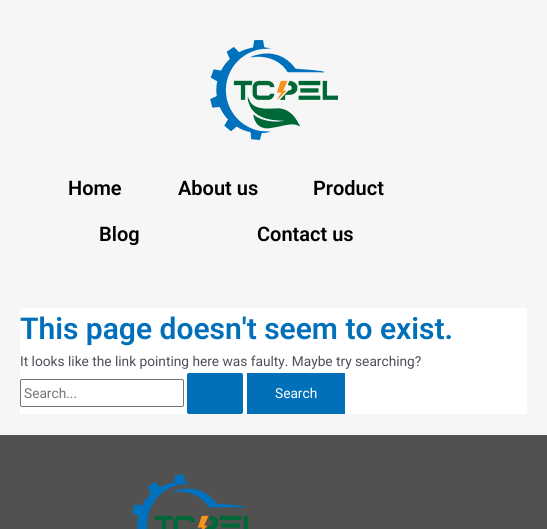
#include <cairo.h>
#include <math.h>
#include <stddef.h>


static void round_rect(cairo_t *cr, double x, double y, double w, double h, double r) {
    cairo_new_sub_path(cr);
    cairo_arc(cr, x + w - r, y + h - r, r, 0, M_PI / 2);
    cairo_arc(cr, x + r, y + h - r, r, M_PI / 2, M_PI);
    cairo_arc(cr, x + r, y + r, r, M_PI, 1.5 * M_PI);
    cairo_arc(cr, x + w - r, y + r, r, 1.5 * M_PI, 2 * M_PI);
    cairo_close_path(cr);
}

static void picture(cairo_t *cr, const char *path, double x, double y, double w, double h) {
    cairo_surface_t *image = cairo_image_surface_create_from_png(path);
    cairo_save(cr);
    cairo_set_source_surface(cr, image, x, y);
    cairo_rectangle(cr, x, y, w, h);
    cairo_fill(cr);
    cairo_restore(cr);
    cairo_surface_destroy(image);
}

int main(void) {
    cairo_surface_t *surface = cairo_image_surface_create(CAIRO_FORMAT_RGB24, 547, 529);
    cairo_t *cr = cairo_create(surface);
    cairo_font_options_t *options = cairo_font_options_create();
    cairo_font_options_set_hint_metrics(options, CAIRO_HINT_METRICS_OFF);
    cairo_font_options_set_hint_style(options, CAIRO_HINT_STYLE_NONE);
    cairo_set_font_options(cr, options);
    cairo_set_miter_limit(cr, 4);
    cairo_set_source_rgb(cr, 0.961, 0.961, 0.961);
    cairo_paint(cr);
    picture(cr, "img1.png", 210, 40, 128, 100);
    cairo_select_font_face(cr, "Roboto SemiBold", CAIRO_FONT_SLANT_NORMAL, CAIRO_FONT_WEIGHT_NORMAL);
    cairo_set_font_size(cr, 20);
    cairo_set_source_rgb(cr, 0, 0, 0);
    cairo_move_to(cr, 68, 195);
    cairo_show_text(cr, "Home");
    cairo_move_to(cr, 178, 195);
    cairo_show_text(cr, "About us");
    cairo_move_to(cr, 313, 195);
    cairo_show_text(cr, "Product");
    cairo_move_to(cr, 99, 241);
    cairo_show_text(cr, "Blog");
    cairo_move_to(cr, 257, 241);
    cairo_show_text(cr, "Contact us");
    cairo_set_source_rgb(cr, 1, 1, 1);
    cairo_rectangle(cr, 20, 308, 507, 106);
    cairo_fill(cr);
    cairo_set_font_size(cr, 30);
    cairo_set_source_rgb(cr, 0.004, 0.439, 0.725);
    cairo_move_to(cr, 20, 339);
    cairo_show_text(cr, "This page doesn't seem to exist.");
    cairo_select_font_face(cr, "Roboto", CAIRO_FONT_SLANT_NORMAL, CAIRO_FONT_WEIGHT_NORMAL);
    cairo_set_font_size(cr, 13.7);
    cairo_set_source_rgb(cr, 0.294, 0.31, 0.345);
    cairo_move_to(cr, 20, 366);
    cairo_show_text(cr, "It looks like the link pointing here was faulty. Maybe try searching?");
    round_rect(cr, 20.5, 379.5, 163, 27, 1.5);
    cairo_set_source_rgb(cr, 0.463, 0.463, 0.463);
    cairo_set_line_width(cr, 1);
    cairo_stroke(cr);
    cairo_set_source_rgb(cr, 0.459, 0.459, 0.459);
    cairo_move_to(cr, 24, 398);
    cairo_show_text(cr, "Search...");
    cairo_set_source_rgb(cr, 0.004, 0.439, 0.725);
    round_rect(cr, 187, 373, 56, 41, 2);
    cairo_fill(cr);
    cairo_rectangle(cr, 247, 373, 98, 41);
    cairo_fill(cr);
    cairo_set_source_rgb(cr, 1, 1, 1);
    cairo_move_to(cr, 275, 398);
    cairo_show_text(cr, "Search");
    cairo_set_source_rgb(cr, 0.318, 0.318, 0.318);
    cairo_rectangle(cr, 0, 435, 547, 94);
    cairo_fill(cr);
    picture(cr, "img2.png", 131, 475, 118, 54);
    cairo_surface_write_to_png(surface, "page.png");
    cairo_font_options_destroy(options);
    cairo_destroy(cr);
    cairo_surface_destroy(surface);
    return 0;
}
